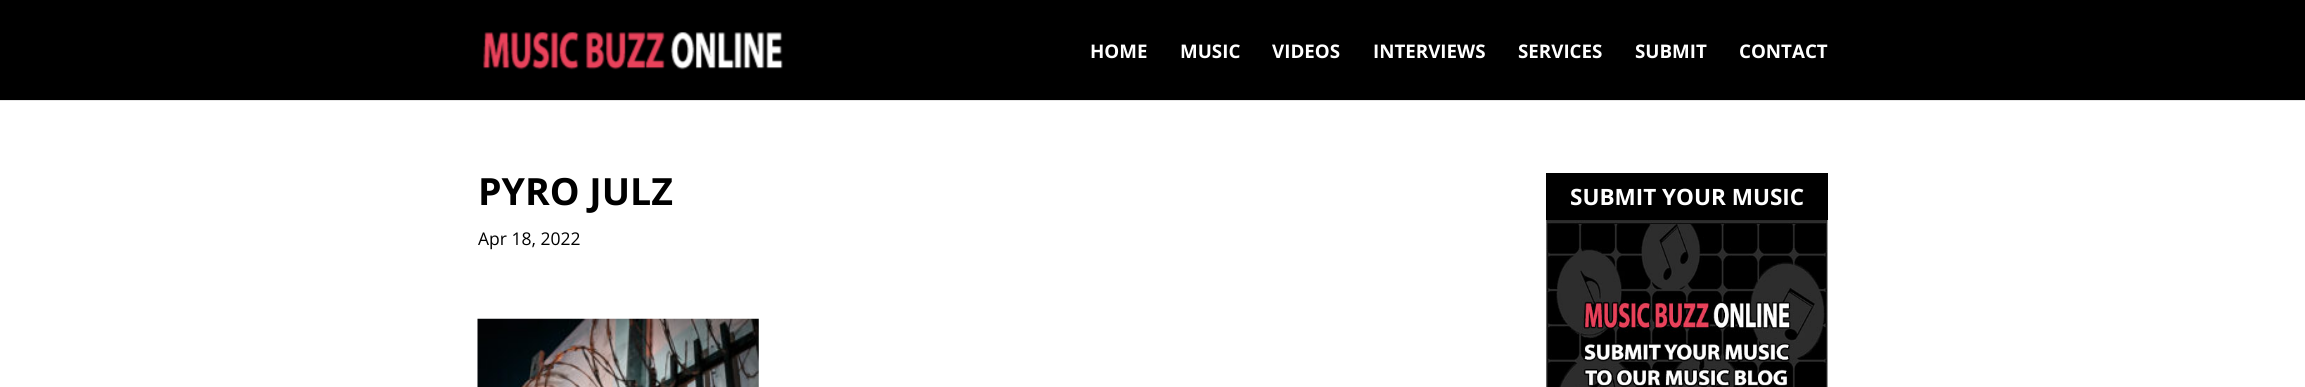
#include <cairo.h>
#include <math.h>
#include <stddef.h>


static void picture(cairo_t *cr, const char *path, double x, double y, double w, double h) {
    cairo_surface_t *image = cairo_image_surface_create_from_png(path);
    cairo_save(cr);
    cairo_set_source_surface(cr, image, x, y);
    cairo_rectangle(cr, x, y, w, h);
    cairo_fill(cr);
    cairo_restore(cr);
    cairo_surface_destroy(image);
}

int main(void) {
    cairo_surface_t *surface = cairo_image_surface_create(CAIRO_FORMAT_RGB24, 2305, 387);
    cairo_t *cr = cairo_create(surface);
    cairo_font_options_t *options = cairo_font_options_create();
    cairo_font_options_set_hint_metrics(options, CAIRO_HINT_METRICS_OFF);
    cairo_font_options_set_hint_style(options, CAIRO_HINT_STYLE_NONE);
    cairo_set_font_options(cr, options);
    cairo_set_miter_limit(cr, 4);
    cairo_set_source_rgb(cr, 1, 1, 1);
    cairo_paint(cr);
    cairo_set_source_rgb(cr, 0.902, 0.902, 0.902);
    cairo_rectangle(cr, 0, 100, 2305, 1);
    cairo_fill(cr);
    cairo_set_source_rgb(cr, 0, 0, 0);
    cairo_rectangle(cr, 0, 0, 2305, 100);
    cairo_fill(cr);
    picture(cr, "img1.png", 483, 32, 300, 38);
    cairo_select_font_face(cr, "Open Sans", CAIRO_FONT_SLANT_NORMAL, CAIRO_FONT_WEIGHT_BOLD);
    cairo_set_font_size(cr, 18.75);
    cairo_set_source_rgb(cr, 1, 1, 1);
    cairo_move_to(cr, 1090, 58);
    cairo_show_text(cr, "HOME");
    cairo_move_to(cr, 1180, 58);
    cairo_show_text(cr, "MUSIC");
    cairo_move_to(cr, 1272, 58);
    cairo_show_text(cr, "VIDEOS");
    cairo_move_to(cr, 1373, 58);
    cairo_show_text(cr, "INTERVIEWS");
    cairo_move_to(cr, 1518, 58);
    cairo_show_text(cr, "SERVICES");
    cairo_move_to(cr, 1635, 58);
    cairo_show_text(cr, "SUBMIT");
    cairo_move_to(cr, 1739, 58);
    cairo_show_text(cr, "CONTACT");
    cairo_set_font_size(cr, 37.5);
    cairo_set_source_rgb(cr, 0, 0, 0);
    cairo_move_to(cr, 478, 205);
    cairo_show_text(cr, "PYRO JULZ");
    cairo_select_font_face(cr, "Open Sans", CAIRO_FONT_SLANT_NORMAL, CAIRO_FONT_WEIGHT_NORMAL);
    cairo_set_font_size(cr, 17.5);
    cairo_move_to(cr, 478, 245);
    cairo_show_text(cr, "Apr 18, 2022");
    picture(cr, "img2.png", 477, 318, 282, 69);
    cairo_rectangle(cr, 1546, 173, 282, 47);
    cairo_fill(cr);
    cairo_select_font_face(cr, "Open Sans", CAIRO_FONT_SLANT_NORMAL, CAIRO_FONT_WEIGHT_BOLD);
    cairo_set_font_size(cr, 22.5);
    cairo_set_source_rgb(cr, 1, 1, 1);
    cairo_move_to(cr, 1570, 205);
    cairo_show_text(cr, "SUBMIT YOUR MUSIC");
    picture(cr, "img3.png", 1546, 220, 282, 167);
    cairo_surface_write_to_png(surface, "page.png");
    cairo_font_options_destroy(options);
    cairo_destroy(cr);
    cairo_surface_destroy(surface);
    return 0;
}
